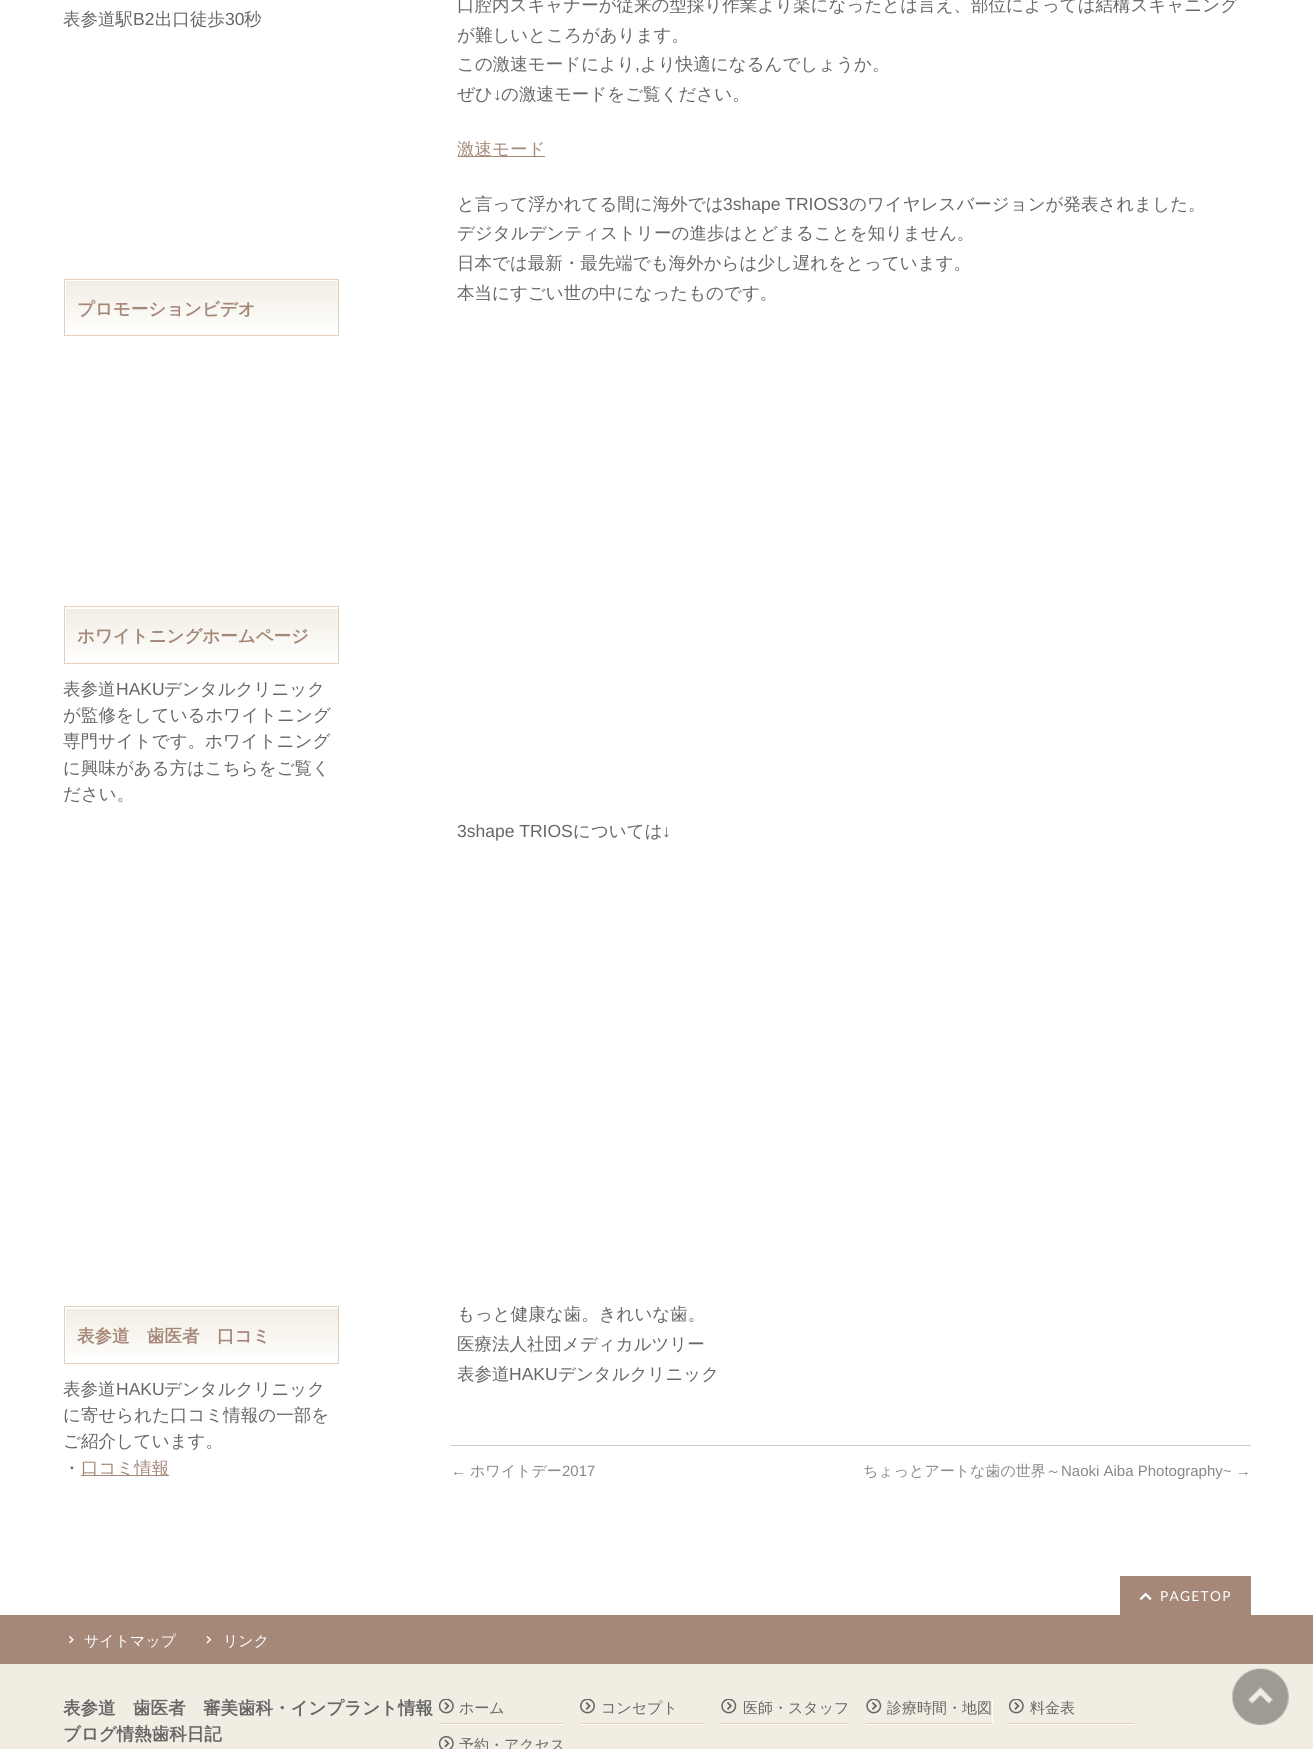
#include <cairo.h>
#include <math.h>
#include <stddef.h>


static void spaced_text(cairo_t *cr, double x, double y, const char *s, double letter, double word) {
    cairo_move_to(cr, x, y);
    while (*s) {
        char ch[5] = {0};
        int n = 0;
        do ch[n++] = *s++; while ((*s & 0xC0) == 0x80);
        cairo_show_text(cr, ch);
        cairo_rel_move_to(cr, letter + word * (*ch == ' '), 0);
    }
}

static void picture(cairo_t *cr, const char *path, double x, double y, double w, double h) {
    cairo_surface_t *image = cairo_image_surface_create_from_png(path);
    cairo_save(cr);
    cairo_set_source_surface(cr, image, x, y);
    cairo_rectangle(cr, x, y, w, h);
    cairo_fill(cr);
    cairo_restore(cr);
    cairo_surface_destroy(image);
}

int main(void) {
    cairo_surface_t *surface = cairo_image_surface_create(CAIRO_FORMAT_RGB24, 1313, 1749);
    cairo_t *cr = cairo_create(surface);
    cairo_font_options_t *options = cairo_font_options_create();
    cairo_font_options_set_hint_metrics(options, CAIRO_HINT_METRICS_OFF);
    cairo_font_options_set_hint_style(options, CAIRO_HINT_STYLE_NONE);
    cairo_set_font_options(cr, options);
    cairo_set_miter_limit(cr, 4);
    cairo_pattern_t *gradient;
    cairo_set_source_rgb(cr, 1, 1, 1);
    cairo_paint(cr);
    cairo_select_font_face(cr, "WenQuanYi Zen Hei Medium", CAIRO_FONT_SLANT_NORMAL, CAIRO_FONT_WEIGHT_NORMAL);
    cairo_set_font_size(cr, 17.5);
    cairo_set_source_rgb(cr, 0.4, 0.4, 0.4);
    cairo_move_to(cr, 63, 25);
    cairo_show_text(cr, "表参道駅");
    cairo_select_font_face(cr, "Liberation Sans", CAIRO_FONT_SLANT_NORMAL, CAIRO_FONT_WEIGHT_NORMAL);
    cairo_move_to(cr, 133, 25);
    cairo_show_text(cr, "B2");
    cairo_select_font_face(cr, "WenQuanYi Zen Hei Medium", CAIRO_FONT_SLANT_NORMAL, CAIRO_FONT_WEIGHT_NORMAL);
    cairo_move_to(cr, 155, 25);
    cairo_show_text(cr, "出口徒歩");
    cairo_select_font_face(cr, "Liberation Sans", CAIRO_FONT_SLANT_NORMAL, CAIRO_FONT_WEIGHT_NORMAL);
    cairo_move_to(cr, 225, 25);
    cairo_show_text(cr, "30");
    cairo_select_font_face(cr, "WenQuanYi Zen Hei Medium", CAIRO_FONT_SLANT_NORMAL, CAIRO_FONT_WEIGHT_NORMAL);
    cairo_move_to(cr, 244, 25);
    cairo_show_text(cr, "秒");
    gradient = cairo_pattern_create_linear(201, 280, 201, 335);
    cairo_pattern_add_color_stop_rgba(gradient, 0, 0.949, 0.929, 0.89, 1);
    cairo_pattern_add_color_stop_rgba(gradient, 1, 1, 1, 1, 1);
    cairo_set_source(cr, gradient);
    cairo_pattern_destroy(gradient);
    cairo_rectangle(cr, 66, 281, 272, 49);
    cairo_fill(cr);
    cairo_rectangle(cr, 64.5, 279.5, 274, 56);
    cairo_set_source_rgb(cr, 0.89, 0.82, 0.745);
    cairo_set_line_width(cr, 1);
    cairo_stroke(cr);
    cairo_select_font_face(cr, "WenQuanYi Zen Hei", CAIRO_FONT_SLANT_NORMAL, CAIRO_FONT_WEIGHT_BOLD);
    cairo_set_source_rgb(cr, 0.651, 0.533, 0.475);
    cairo_move_to(cr, 77, 315);
    cairo_show_text(cr, "プロモーションビデオ");
    gradient = cairo_pattern_create_linear(201, 608, 201, 663);
    cairo_pattern_add_color_stop_rgba(gradient, 0, 0.949, 0.929, 0.89, 1);
    cairo_pattern_add_color_stop_rgba(gradient, 1, 1, 1, 1, 1);
    cairo_set_source(cr, gradient);
    cairo_pattern_destroy(gradient);
    cairo_rectangle(cr, 66, 609, 272, 49);
    cairo_fill(cr);
    cairo_rectangle(cr, 64.5, 606.5, 274, 57);
    cairo_set_source_rgb(cr, 0.89, 0.82, 0.745);
    cairo_stroke(cr);
    cairo_set_source_rgb(cr, 0.651, 0.533, 0.475);
    cairo_move_to(cr, 77, 642);
    cairo_show_text(cr, "ホワイトニングホームページ");
    cairo_select_font_face(cr, "WenQuanYi Zen Hei Medium", CAIRO_FONT_SLANT_NORMAL, CAIRO_FONT_WEIGHT_NORMAL);
    cairo_set_source_rgb(cr, 0.4, 0.4, 0.4);
    cairo_move_to(cr, 63, 695);
    cairo_show_text(cr, "表参道");
    cairo_select_font_face(cr, "Liberation Sans", CAIRO_FONT_SLANT_NORMAL, CAIRO_FONT_WEIGHT_NORMAL);
    cairo_move_to(cr, 116, 695);
    cairo_show_text(cr, "HAKU");
    cairo_select_font_face(cr, "WenQuanYi Zen Hei Medium", CAIRO_FONT_SLANT_NORMAL, CAIRO_FONT_WEIGHT_NORMAL);
    cairo_move_to(cr, 164, 695);
    cairo_show_text(cr, "デンタルクリニック");
    cairo_move_to(cr, 63, 721);
    cairo_show_text(cr, "が監修をしているホワイトニング");
    cairo_move_to(cr, 63, 747);
    cairo_show_text(cr, "専門サイトです。ホワイトニング");
    cairo_move_to(cr, 63, 774);
    cairo_show_text(cr, "に興味がある方はこちらをご覧く");
    cairo_move_to(cr, 63, 800);
    cairo_show_text(cr, "ださい。");
    gradient = cairo_pattern_create_linear(201, 1308, 201, 1363);
    cairo_pattern_add_color_stop_rgba(gradient, 0, 0.949, 0.929, 0.89, 1);
    cairo_pattern_add_color_stop_rgba(gradient, 1, 1, 1, 1, 1);
    cairo_set_source(cr, gradient);
    cairo_pattern_destroy(gradient);
    cairo_rectangle(cr, 66, 1309, 272, 49);
    cairo_fill(cr);
    cairo_rectangle(cr, 64.5, 1306.5, 274, 57);
    cairo_set_source_rgb(cr, 0.89, 0.82, 0.745);
    cairo_stroke(cr);
    cairo_select_font_face(cr, "WenQuanYi Zen Hei", CAIRO_FONT_SLANT_NORMAL, CAIRO_FONT_WEIGHT_BOLD);
    cairo_set_source_rgb(cr, 0.651, 0.533, 0.475);
    cairo_move_to(cr, 77, 1342);
    cairo_show_text(cr, "表参道　歯医者　口コミ");
    cairo_select_font_face(cr, "WenQuanYi Zen Hei Medium", CAIRO_FONT_SLANT_NORMAL, CAIRO_FONT_WEIGHT_NORMAL);
    cairo_set_source_rgb(cr, 0.4, 0.4, 0.4);
    cairo_move_to(cr, 63, 1395);
    cairo_show_text(cr, "表参道");
    cairo_select_font_face(cr, "Liberation Sans", CAIRO_FONT_SLANT_NORMAL, CAIRO_FONT_WEIGHT_NORMAL);
    cairo_move_to(cr, 116, 1395);
    cairo_show_text(cr, "HAKU");
    cairo_select_font_face(cr, "WenQuanYi Zen Hei Medium", CAIRO_FONT_SLANT_NORMAL, CAIRO_FONT_WEIGHT_NORMAL);
    cairo_move_to(cr, 164, 1395);
    cairo_show_text(cr, "デンタルクリニック");
    cairo_move_to(cr, 63, 1421);
    cairo_show_text(cr, "に寄せられた口コミ情報の一部を");
    cairo_move_to(cr, 63, 1447);
    cairo_show_text(cr, "ご紹介しています。");
    cairo_move_to(cr, 63, 1474);
    cairo_show_text(cr, "・");
    cairo_set_source_rgb(cr, 0.651, 0.533, 0.475);
    cairo_rectangle(cr, 81, 1475, 88, 1);
    cairo_fill(cr);
    cairo_move_to(cr, 81, 1474);
    cairo_show_text(cr, "口コミ情報");
    cairo_set_source_rgb(cr, 0.4, 0.4, 0.4);
    cairo_move_to(cr, 457, 11);
    cairo_show_text(cr, "口腔内スキャナーが従来の型採り作業より楽になったとは言え、部位によっては結構スキャニング");
    cairo_move_to(cr, 457, 41);
    cairo_show_text(cr, "が難しいところがあります。");
    cairo_move_to(cr, 457, 70);
    cairo_show_text(cr, "この激速モードにより");
    cairo_select_font_face(cr, "Liberation Sans", CAIRO_FONT_SLANT_NORMAL, CAIRO_FONT_WEIGHT_NORMAL);
    cairo_move_to(cr, 635, 70);
    cairo_show_text(cr, ",");
    cairo_select_font_face(cr, "WenQuanYi Zen Hei Medium", CAIRO_FONT_SLANT_NORMAL, CAIRO_FONT_WEIGHT_NORMAL);
    cairo_move_to(cr, 640, 70);
    cairo_show_text(cr, "より快適になるんでしょうか。");
    cairo_move_to(cr, 457, 100);
    cairo_show_text(cr, "ぜひ");
    cairo_select_font_face(cr, "Liberation Sans", CAIRO_FONT_SLANT_NORMAL, CAIRO_FONT_WEIGHT_NORMAL);
    cairo_move_to(cr, 493, 100);
    cairo_show_text(cr, "↓");
    cairo_select_font_face(cr, "WenQuanYi Zen Hei Medium", CAIRO_FONT_SLANT_NORMAL, CAIRO_FONT_WEIGHT_NORMAL);
    cairo_move_to(cr, 501, 100);
    cairo_show_text(cr, "の激速モードをご覧ください。");
    cairo_set_source_rgb(cr, 0.651, 0.533, 0.475);
    cairo_rectangle(cr, 458, 156, 87, 1);
    cairo_fill(cr);
    cairo_move_to(cr, 457, 155);
    cairo_show_text(cr, "激速モード");
    cairo_set_source_rgb(cr, 0.4, 0.4, 0.4);
    cairo_move_to(cr, 457, 210);
    cairo_show_text(cr, "と言って浮かれてる間に海外では");
    cairo_select_font_face(cr, "Liberation Sans", CAIRO_FONT_SLANT_NORMAL, CAIRO_FONT_WEIGHT_NORMAL);
    cairo_move_to(cr, 723, 210);
    cairo_show_text(cr, "3shape TRIOS3");
    cairo_select_font_face(cr, "WenQuanYi Zen Hei Medium", CAIRO_FONT_SLANT_NORMAL, CAIRO_FONT_WEIGHT_NORMAL);
    cairo_move_to(cr, 849, 210);
    cairo_show_text(cr, "のワイヤレスバージョンが発表されました。");
    cairo_move_to(cr, 457, 239);
    cairo_show_text(cr, "デジタルデンティストリーの進歩はとどまることを知りません。");
    cairo_move_to(cr, 457, 269);
    cairo_show_text(cr, "日本では最新・最先端でも海外からは少し遅れをとっています。");
    cairo_move_to(cr, 457, 299);
    cairo_show_text(cr, "本当にすごい世の中になったものです。");
    cairo_select_font_face(cr, "Liberation Sans", CAIRO_FONT_SLANT_NORMAL, CAIRO_FONT_WEIGHT_NORMAL);
    cairo_move_to(cr, 457, 837);
    cairo_show_text(cr, "3shape TRIOS");
    cairo_select_font_face(cr, "WenQuanYi Zen Hei Medium", CAIRO_FONT_SLANT_NORMAL, CAIRO_FONT_WEIGHT_NORMAL);
    cairo_move_to(cr, 573, 837);
    cairo_show_text(cr, "については");
    cairo_select_font_face(cr, "Liberation Sans", CAIRO_FONT_SLANT_NORMAL, CAIRO_FONT_WEIGHT_NORMAL);
    cairo_move_to(cr, 662, 837);
    cairo_show_text(cr, "↓");
    cairo_select_font_face(cr, "WenQuanYi Zen Hei Medium", CAIRO_FONT_SLANT_NORMAL, CAIRO_FONT_WEIGHT_NORMAL);
    cairo_move_to(cr, 457, 1320);
    cairo_show_text(cr, "もっと健康な歯。きれいな歯。");
    cairo_move_to(cr, 457, 1350);
    cairo_show_text(cr, "医療法人社団メディカルツリー");
    cairo_move_to(cr, 457, 1380);
    cairo_show_text(cr, "表参道");
    cairo_select_font_face(cr, "Liberation Sans", CAIRO_FONT_SLANT_NORMAL, CAIRO_FONT_WEIGHT_NORMAL);
    cairo_move_to(cr, 509, 1380);
    cairo_show_text(cr, "HAKU");
    cairo_select_font_face(cr, "WenQuanYi Zen Hei Medium", CAIRO_FONT_SLANT_NORMAL, CAIRO_FONT_WEIGHT_NORMAL);
    cairo_move_to(cr, 558, 1380);
    cairo_show_text(cr, "デンタルクリニック");
    cairo_set_source_rgb(cr, 0.8, 0.8, 0.8);
    cairo_rectangle(cr, 451, 1445, 800, 1);
    cairo_fill(cr);
    cairo_select_font_face(cr, "Liberation Sans", CAIRO_FONT_SLANT_NORMAL, CAIRO_FONT_WEIGHT_NORMAL);
    cairo_set_font_size(cr, 15);
    cairo_set_source_rgb(cr, 0.533, 0.533, 0.533);
    cairo_move_to(cr, 451, 1476);
    cairo_show_text(cr, "←");
    cairo_select_font_face(cr, "WenQuanYi Zen Hei Medium", CAIRO_FONT_SLANT_NORMAL, CAIRO_FONT_WEIGHT_NORMAL);
    cairo_move_to(cr, 470, 1476);
    cairo_show_text(cr, "ホワイトデー");
    cairo_select_font_face(cr, "Liberation Sans", CAIRO_FONT_SLANT_NORMAL, CAIRO_FONT_WEIGHT_NORMAL);
    cairo_move_to(cr, 562, 1476);
    cairo_show_text(cr, "2017");
    cairo_select_font_face(cr, "WenQuanYi Zen Hei Medium", CAIRO_FONT_SLANT_NORMAL, CAIRO_FONT_WEIGHT_NORMAL);
    cairo_move_to(cr, 863, 1476);
    cairo_show_text(cr, "ちょっとアートな歯の世界～");
    cairo_select_font_face(cr, "Liberation Sans", CAIRO_FONT_SLANT_NORMAL, CAIRO_FONT_WEIGHT_NORMAL);
    cairo_move_to(cr, 1061, 1476);
    cairo_show_text(cr, "Naoki Aiba Photography~ →");
    cairo_set_source_rgb(cr, 0.651, 0.533, 0.475);
    cairo_rectangle(cr, 1120, 1576, 131, 39);
    cairo_fill(cr);
    picture(cr, "img1.png", 1139, 1592, 13, 9);
    cairo_select_font_face(cr, "Lato", CAIRO_FONT_SLANT_NORMAL, CAIRO_FONT_WEIGHT_NORMAL);
    cairo_set_font_size(cr, 13.75);
    cairo_set_source_rgb(cr, 1, 1, 1);
    spaced_text(cr, 1160, 1601, "PAGETOP", 1.25, 0);
    cairo_set_source_rgb(cr, 0.651, 0.533, 0.475);
    cairo_rectangle(cr, 0, 1615, 1313, 49);
    cairo_fill(cr);
    picture(cr, "img2.png", 69, 1636, 5, 8);
    cairo_select_font_face(cr, "WenQuanYi Zen Hei Medium", CAIRO_FONT_SLANT_NORMAL, CAIRO_FONT_WEIGHT_NORMAL);
    cairo_set_font_size(cr, 15);
    cairo_set_source_rgb(cr, 1, 1, 1);
    cairo_move_to(cr, 84, 1646);
    cairo_show_text(cr, "サイトマップ");
    picture(cr, "img3.png", 206, 1636, 6, 8);
    cairo_move_to(cr, 223, 1646);
    cairo_show_text(cr, "リンク");
    cairo_set_source_rgb(cr, 0.949, 0.929, 0.89);
    cairo_rectangle(cr, 0, 1664, 1313, 85);
    cairo_fill(cr);
    cairo_select_font_face(cr, "WenQuanYi Zen Hei", CAIRO_FONT_SLANT_NORMAL, CAIRO_FONT_WEIGHT_BOLD);
    cairo_set_font_size(cr, 17.5);
    cairo_set_source_rgb(cr, 0.4, 0.4, 0.4);
    cairo_move_to(cr, 63, 1714);
    cairo_show_text(cr, "表参道　歯医者　審美歯科・インプラント情報");
    cairo_move_to(cr, 63, 1740);
    cairo_show_text(cr, "ブログ情熱歯科日記");
    cairo_set_source_rgb(cr, 1, 1, 1);
    cairo_new_path(cr);
    cairo_move_to(cr, 439, 1724);
    cairo_line_to(cr, 439, 1725);
    cairo_line_to(cr, 564, 1725);
    cairo_line_to(cr, 564, 1700);
    cairo_line_to(cr, 564, 1724);
    cairo_close_path(cr);
    cairo_fill(cr);
    cairo_set_source_rgb(cr, 0.89, 0.82, 0.745);
    cairo_rectangle(cr, 439, 1723, 125, 1);
    cairo_fill(cr);
    picture(cr, "img4.png", 439, 1699, 15, 15);
    cairo_select_font_face(cr, "WenQuanYi Zen Hei Medium", CAIRO_FONT_SLANT_NORMAL, CAIRO_FONT_WEIGHT_NORMAL);
    cairo_set_font_size(cr, 15);
    cairo_set_source_rgb(cr, 0.4, 0.4, 0.4);
    cairo_move_to(cr, 459, 1713);
    cairo_show_text(cr, "ホーム");
    cairo_set_source_rgb(cr, 1, 1, 1);
    cairo_rectangle(cr, 580, 1724, 125, 1);
    cairo_fill(cr);
    cairo_set_source_rgb(cr, 0.89, 0.82, 0.745);
    cairo_rectangle(cr, 580, 1723, 125, 1);
    cairo_fill(cr);
    picture(cr, "img5.png", 580, 1699, 15, 15);
    cairo_set_source_rgb(cr, 0.4, 0.4, 0.4);
    cairo_move_to(cr, 601, 1713);
    cairo_show_text(cr, "コンセプト");
    cairo_set_source_rgb(cr, 1, 1, 1);
    cairo_new_path(cr);
    cairo_move_to(cr, 721, 1700);
    cairo_line_to(cr, 721, 1725);
    cairo_line_to(cr, 849, 1725);
    cairo_line_to(cr, 849, 1700);
    cairo_line_to(cr, 849, 1724);
    cairo_line_to(cr, 721, 1724);
    cairo_close_path(cr);
    cairo_fill(cr);
    cairo_set_source_rgb(cr, 0.89, 0.82, 0.745);
    cairo_rectangle(cr, 721, 1723, 128, 1);
    cairo_fill(cr);
    picture(cr, "img6.png", 721, 1699, 16, 15);
    cairo_set_source_rgb(cr, 0.4, 0.4, 0.4);
    cairo_move_to(cr, 743, 1713);
    cairo_show_text(cr, "医師・スタッフ");
    cairo_set_source_rgb(cr, 1, 1, 1);
    cairo_new_path(cr);
    cairo_move_to(cr, 866, 1700);
    cairo_line_to(cr, 866, 1725);
    cairo_line_to(cr, 993, 1725);
    cairo_line_to(cr, 993, 1700);
    cairo_line_to(cr, 992, 1700);
    cairo_line_to(cr, 992, 1724);
    cairo_line_to(cr, 866, 1724);
    cairo_close_path(cr);
    cairo_fill(cr);
    cairo_set_source_rgb(cr, 0.89, 0.82, 0.745);
    cairo_rectangle(cr, 866, 1723, 127, 1);
    cairo_fill(cr);
    picture(cr, "img6.png", 866, 1699, 16, 15);
    cairo_set_source_rgb(cr, 0.4, 0.4, 0.4);
    cairo_move_to(cr, 887, 1713);
    cairo_show_text(cr, "診療時間・地図");
    cairo_set_source_rgb(cr, 1, 1, 1);
    cairo_new_path(cr);
    cairo_move_to(cr, 1009, 1724);
    cairo_line_to(cr, 1009, 1725);
    cairo_line_to(cr, 1134, 1725);
    cairo_line_to(cr, 1134, 1700);
    cairo_line_to(cr, 1134, 1724);
    cairo_close_path(cr);
    cairo_fill(cr);
    cairo_set_source_rgb(cr, 0.89, 0.82, 0.745);
    cairo_rectangle(cr, 1009, 1723, 125, 1);
    cairo_fill(cr);
    picture(cr, "img4.png", 1009, 1699, 15, 15);
    cairo_set_source_rgb(cr, 0.4, 0.4, 0.4);
    cairo_move_to(cr, 1030, 1713);
    cairo_show_text(cr, "料金表");
    picture(cr, "img7.png", 439, 1736, 15, 13);
    cairo_move_to(cr, 459, 1750);
    cairo_show_text(cr, "予約・アクセス");
    picture(cr, "img8.png", 1232, 1668, 57, 57);
    cairo_surface_write_to_png(surface, "page.png");
    cairo_font_options_destroy(options);
    cairo_destroy(cr);
    cairo_surface_destroy(surface);
    return 0;
}
